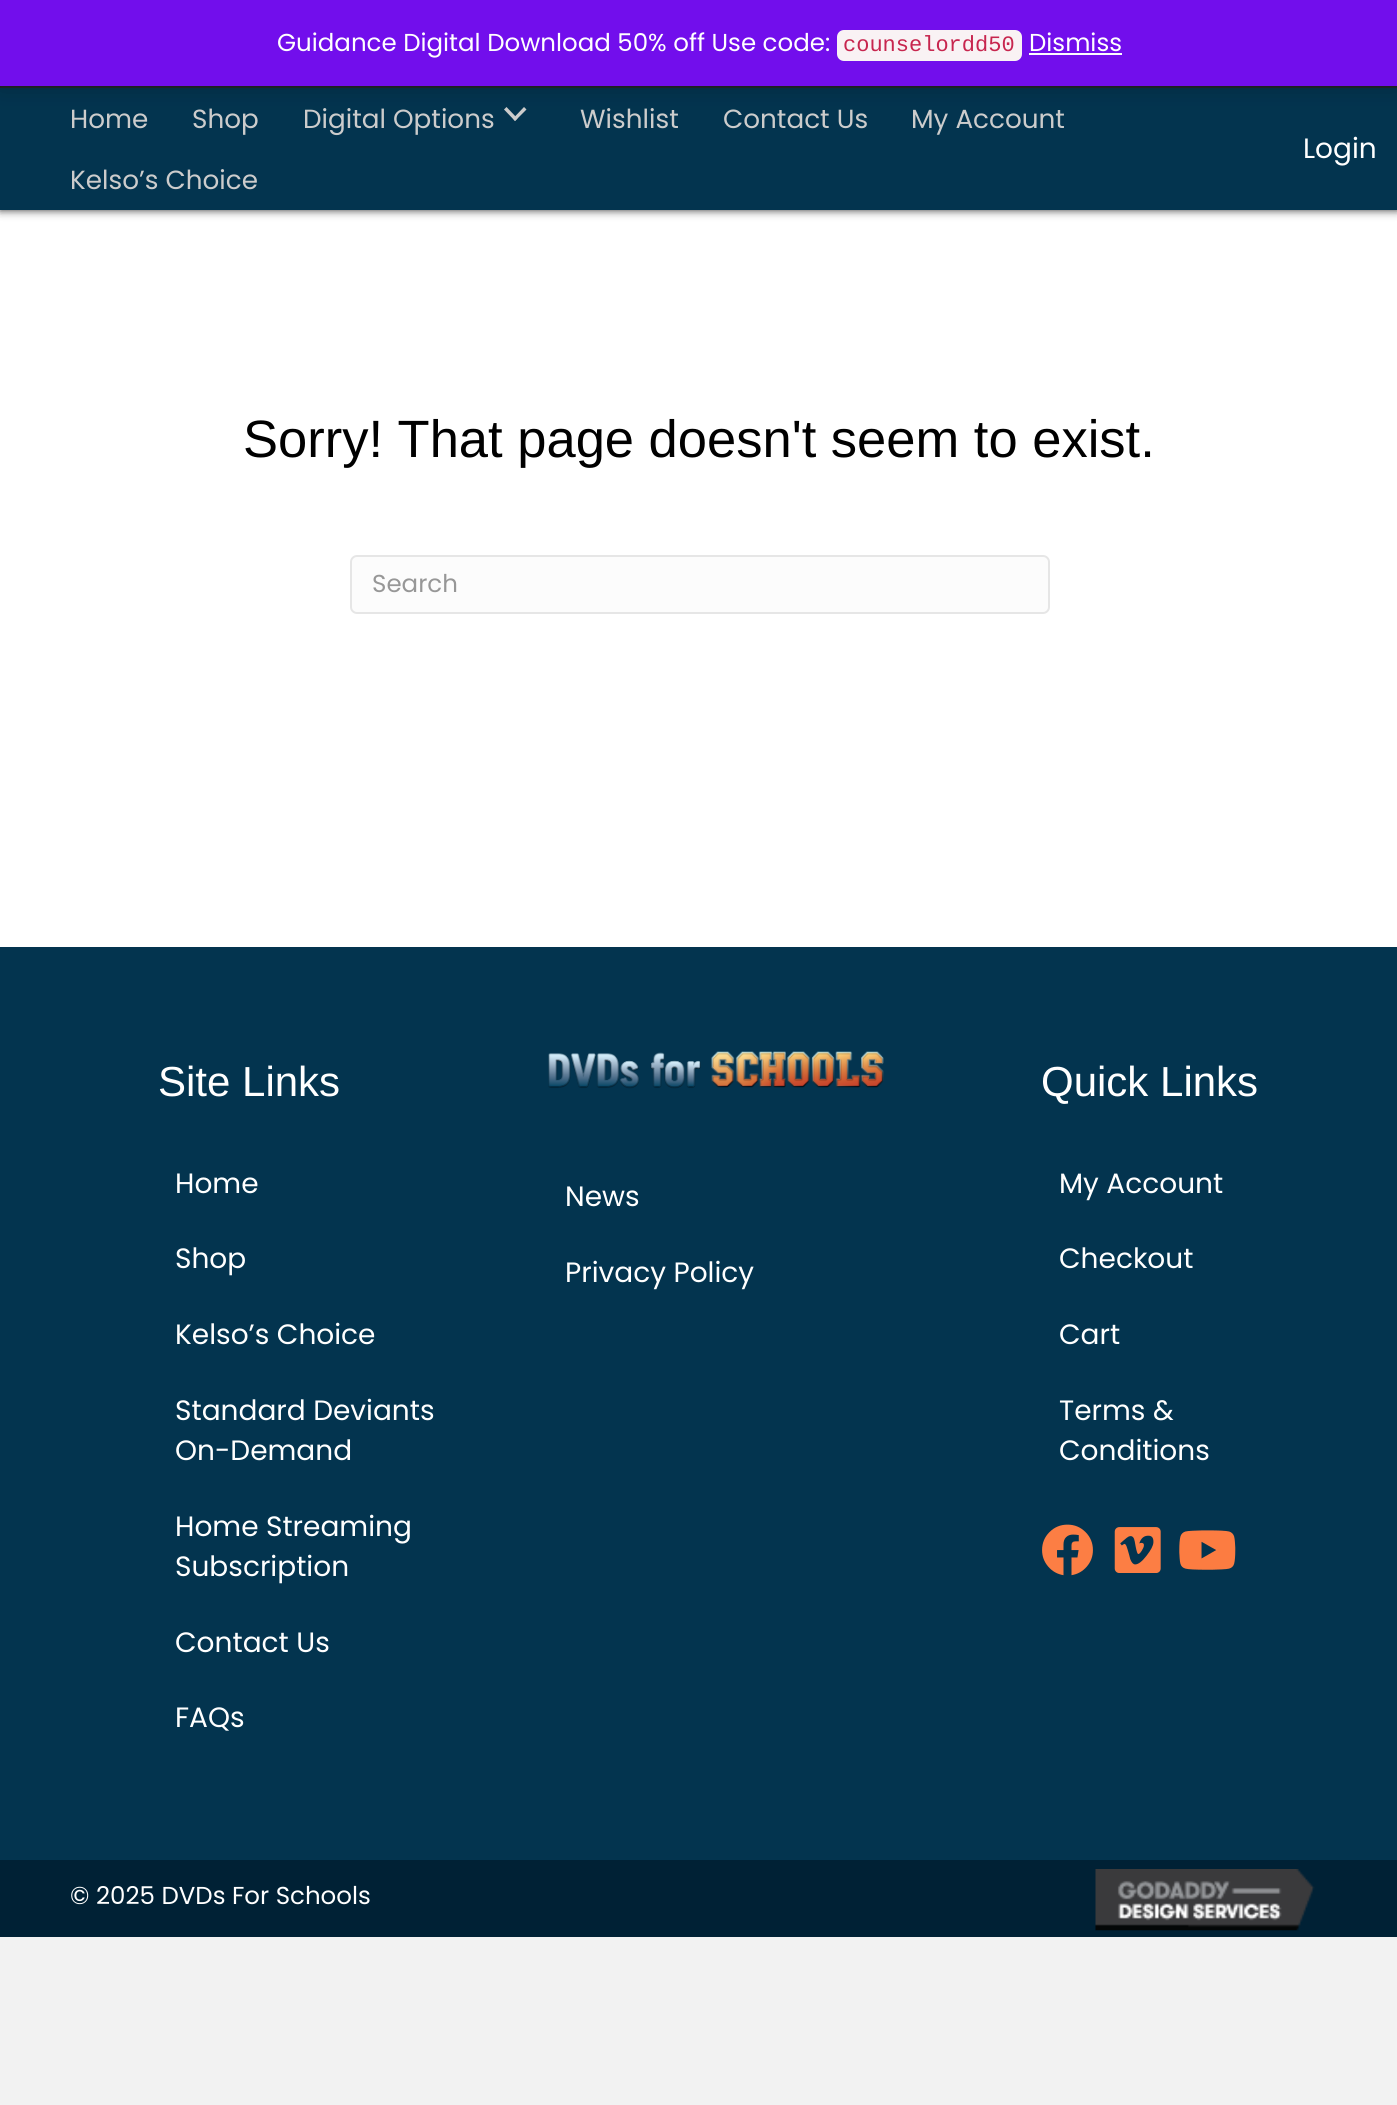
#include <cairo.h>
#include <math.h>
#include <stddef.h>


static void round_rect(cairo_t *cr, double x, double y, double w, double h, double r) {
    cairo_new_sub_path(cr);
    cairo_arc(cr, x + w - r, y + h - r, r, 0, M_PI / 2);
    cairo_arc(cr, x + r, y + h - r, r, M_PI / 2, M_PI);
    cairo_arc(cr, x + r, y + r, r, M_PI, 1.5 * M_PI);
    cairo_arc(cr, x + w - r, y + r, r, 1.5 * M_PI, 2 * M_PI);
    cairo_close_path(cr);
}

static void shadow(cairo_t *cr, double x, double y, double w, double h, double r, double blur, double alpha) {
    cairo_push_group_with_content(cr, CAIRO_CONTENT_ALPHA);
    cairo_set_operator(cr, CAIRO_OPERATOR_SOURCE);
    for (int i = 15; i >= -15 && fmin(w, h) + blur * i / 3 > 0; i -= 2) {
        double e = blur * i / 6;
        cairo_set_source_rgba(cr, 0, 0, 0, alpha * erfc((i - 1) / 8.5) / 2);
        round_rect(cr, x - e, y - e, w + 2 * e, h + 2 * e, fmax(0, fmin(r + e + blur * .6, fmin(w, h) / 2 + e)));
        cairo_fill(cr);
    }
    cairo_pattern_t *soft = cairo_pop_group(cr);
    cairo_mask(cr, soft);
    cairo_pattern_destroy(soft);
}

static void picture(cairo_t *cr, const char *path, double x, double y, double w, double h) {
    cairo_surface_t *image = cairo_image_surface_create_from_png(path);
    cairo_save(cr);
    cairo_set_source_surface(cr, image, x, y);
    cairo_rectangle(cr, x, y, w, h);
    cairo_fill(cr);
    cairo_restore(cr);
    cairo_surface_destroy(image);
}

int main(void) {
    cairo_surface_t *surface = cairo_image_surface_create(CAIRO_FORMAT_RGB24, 1397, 2105);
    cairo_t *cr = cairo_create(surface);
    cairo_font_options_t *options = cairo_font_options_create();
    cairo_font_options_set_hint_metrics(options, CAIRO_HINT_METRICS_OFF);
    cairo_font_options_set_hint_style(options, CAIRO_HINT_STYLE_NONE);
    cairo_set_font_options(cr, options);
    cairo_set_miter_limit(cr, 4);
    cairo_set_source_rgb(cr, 0.949, 0.949, 0.949);
    cairo_paint(cr);
    cairo_set_source_rgb(cr, 0.075, 0.098, 0.129);
    cairo_rectangle(cr, 0, 86, 1397, 2);
    cairo_fill(cr);
    cairo_set_source_rgb(cr, 1, 1, 1);
    cairo_rectangle(cr, 0, 210, 1397, 737);
    cairo_fill(cr);
    cairo_set_source_rgb(cr, 0.2, 0.2, 0.2);
    shadow(cr, 0, 88, 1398, 122, 0, 4.5, 1);
    cairo_set_source_rgb(cr, 0.012, 0.204, 0.31);
    cairo_rectangle(cr, 0, 88, 1397, 122);
    cairo_fill(cr);
    cairo_set_source_rgb(cr, 0.8, 0.8, 0.8);
    cairo_new_path(cr);
    cairo_move_to(cr, 524, 107);
    cairo_line_to(cr, 526.5, 109.5);
    cairo_line_to(cr, 515, 121);
    cairo_line_to(cr, 513, 118.5);
    cairo_close_path(cr);
    cairo_fill(cr);
    cairo_new_path(cr);
    cairo_move_to(cr, 506.5, 107);
    cairo_line_to(cr, 517.5, 118.5);
    cairo_line_to(cr, 515, 121);
    cairo_line_to(cr, 504, 109.5);
    cairo_close_path(cr);
    cairo_fill(cr);
    cairo_set_source_rgb(cr, 0, 0, 0);
    shadow(cr, 0, 2, 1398, 86, 0, 12, 0.2);
    cairo_set_source_rgb(cr, 0.447, 0.055, 0.925);
    cairo_rectangle(cr, 0, 0, 1397, 86);
    cairo_fill(cr);
    cairo_select_font_face(cr, "Poppins", CAIRO_FONT_SLANT_NORMAL, CAIRO_FONT_WEIGHT_NORMAL);
    cairo_set_font_size(cr, 24.5);
    cairo_set_source_rgb(cr, 1, 1, 1);
    cairo_move_to(cr, 277, 51);
    cairo_show_text(cr, "Guidance Digital Download 50% off Use code:");
    cairo_set_source_rgb(cr, 0.976, 0.949, 0.957);
    round_rect(cr, 837, 30, 185, 31, 7);
    cairo_fill(cr);
    cairo_select_font_face(cr, "Liberation Mono", CAIRO_FONT_SLANT_NORMAL, CAIRO_FONT_WEIGHT_NORMAL);
    cairo_set_font_size(cr, 22);
    cairo_set_source_rgb(cr, 0.78, 0.145, 0.306);
    cairo_move_to(cr, 843, 51);
    cairo_show_text(cr, "counselordd50");
    cairo_select_font_face(cr, "Poppins", CAIRO_FONT_SLANT_NORMAL, CAIRO_FONT_WEIGHT_NORMAL);
    cairo_set_font_size(cr, 24.5);
    cairo_set_source_rgb(cr, 1, 1, 1);
    cairo_move_to(cr, 1029, 51);
    cairo_show_text(cr, "Dismiss");
    cairo_set_source_rgb(cr, 0.988, 0.984, 0.996);
    cairo_rectangle(cr, 1029, 53, 93, 2);
    cairo_fill(cr);
    cairo_set_font_size(cr, 26.25);
    cairo_set_source_rgb(cr, 0.8, 0.8, 0.8);
    cairo_move_to(cr, 70, 128);
    cairo_show_text(cr, "Home");
    cairo_move_to(cr, 192, 128);
    cairo_show_text(cr, "Shop");
    cairo_move_to(cr, 303, 128);
    cairo_show_text(cr, "Digital Options");
    cairo_move_to(cr, 580, 128);
    cairo_show_text(cr, "Wishlist");
    cairo_move_to(cr, 723, 128);
    cairo_show_text(cr, "Contact Us");
    cairo_move_to(cr, 911, 128);
    cairo_show_text(cr, "My Account");
    cairo_move_to(cr, 70, 189);
    cairo_show_text(cr, "Kelso’s Choice");
    cairo_set_font_size(cr, 28);
    cairo_set_source_rgb(cr, 1, 1, 1);
    cairo_move_to(cr, 1303, 158);
    cairo_show_text(cr, "Login");
    cairo_select_font_face(cr, "Liberation Sans", CAIRO_FONT_SLANT_NORMAL, CAIRO_FONT_WEIGHT_NORMAL);
    cairo_set_font_size(cr, 52.5);
    cairo_set_source_rgb(cr, 0, 0, 0);
    cairo_move_to(cr, 243, 457);
    cairo_show_text(cr, "Sorry! That page doesn't seem to exist.");
    cairo_set_source_rgb(cr, 0.988, 0.988, 0.988);
    round_rect(cr, 351, 556, 698, 57, 6);
    cairo_fill_preserve(cr);
    cairo_set_source_rgb(cr, 0.902, 0.902, 0.902);
    cairo_stroke(cr);
    cairo_select_font_face(cr, "Poppins", CAIRO_FONT_SLANT_NORMAL, CAIRO_FONT_WEIGHT_NORMAL);
    cairo_set_font_size(cr, 24.5);
    cairo_set_source_rgb(cr, 0.592, 0.592, 0.592);
    cairo_move_to(cr, 372, 592);
    cairo_show_text(cr, "Search");
    cairo_set_source_rgb(cr, 0.012, 0.204, 0.31);
    cairo_rectangle(cr, 0, 947, 1397, 913);
    cairo_fill(cr);
    cairo_select_font_face(cr, "Liberation Sans", CAIRO_FONT_SLANT_NORMAL, CAIRO_FONT_WEIGHT_NORMAL);
    cairo_set_font_size(cr, 42);
    cairo_set_source_rgb(cr, 1, 1, 1);
    cairo_move_to(cr, 158, 1096);
    cairo_show_text(cr, "Site Links");
    cairo_select_font_face(cr, "Poppins", CAIRO_FONT_SLANT_NORMAL, CAIRO_FONT_WEIGHT_NORMAL);
    cairo_set_font_size(cr, 28);
    cairo_move_to(cr, 175, 1193);
    cairo_show_text(cr, "Home");
    cairo_move_to(cr, 175, 1268);
    cairo_show_text(cr, "Shop");
    cairo_move_to(cr, 175, 1344);
    cairo_show_text(cr, "Kelso’s Choice");
    cairo_move_to(cr, 175, 1420);
    cairo_show_text(cr, "Standard Deviants");
    cairo_move_to(cr, 175, 1460);
    cairo_show_text(cr, "On-Demand");
    cairo_move_to(cr, 175, 1536);
    cairo_show_text(cr, "Home Streaming");
    cairo_move_to(cr, 175, 1576);
    cairo_show_text(cr, "Subscription");
    cairo_move_to(cr, 175, 1652);
    cairo_show_text(cr, "Contact Us");
    cairo_move_to(cr, 175, 1727);
    cairo_show_text(cr, "FAQs");
    picture(cr, "img1.png", 548, 1051, 336, 38);
    cairo_move_to(cr, 565, 1206);
    cairo_show_text(cr, "News");
    cairo_move_to(cr, 565, 1282);
    cairo_show_text(cr, "Privacy Policy");
    cairo_select_font_face(cr, "Liberation Sans", CAIRO_FONT_SLANT_NORMAL, CAIRO_FONT_WEIGHT_NORMAL);
    cairo_set_font_size(cr, 42);
    cairo_move_to(cr, 1041, 1096);
    cairo_show_text(cr, "Quick Links");
    cairo_select_font_face(cr, "Poppins", CAIRO_FONT_SLANT_NORMAL, CAIRO_FONT_WEIGHT_NORMAL);
    cairo_set_font_size(cr, 28);
    cairo_move_to(cr, 1059, 1193);
    cairo_show_text(cr, "My Account");
    cairo_move_to(cr, 1059, 1268);
    cairo_show_text(cr, "Checkout");
    cairo_move_to(cr, 1059, 1344);
    cairo_show_text(cr, "Cart");
    cairo_move_to(cr, 1059, 1420);
    cairo_show_text(cr, "Terms &");
    cairo_move_to(cr, 1059, 1460);
    cairo_show_text(cr, "Conditions");
    picture(cr, "img2.png", 1042, 1524, 51, 52);
    picture(cr, "img3.png", 1114, 1527, 47, 46);
    picture(cr, "img4.png", 1179, 1530, 57, 40);
    cairo_set_source_rgb(cr, 0, 0.129, 0.208);
    cairo_rectangle(cr, 0, 1860, 1397, 77);
    cairo_fill(cr);
    cairo_set_font_size(cr, 24.5);
    cairo_set_source_rgb(cr, 1, 1, 1);
    cairo_move_to(cr, 70, 1904);
    cairo_show_text(cr, "© 2025 DVDs For Schools");
    picture(cr, "img5.png", 1095, 1869, 220, 62);
    cairo_surface_write_to_png(surface, "page.png");
    cairo_font_options_destroy(options);
    cairo_destroy(cr);
    cairo_surface_destroy(surface);
    return 0;
}
